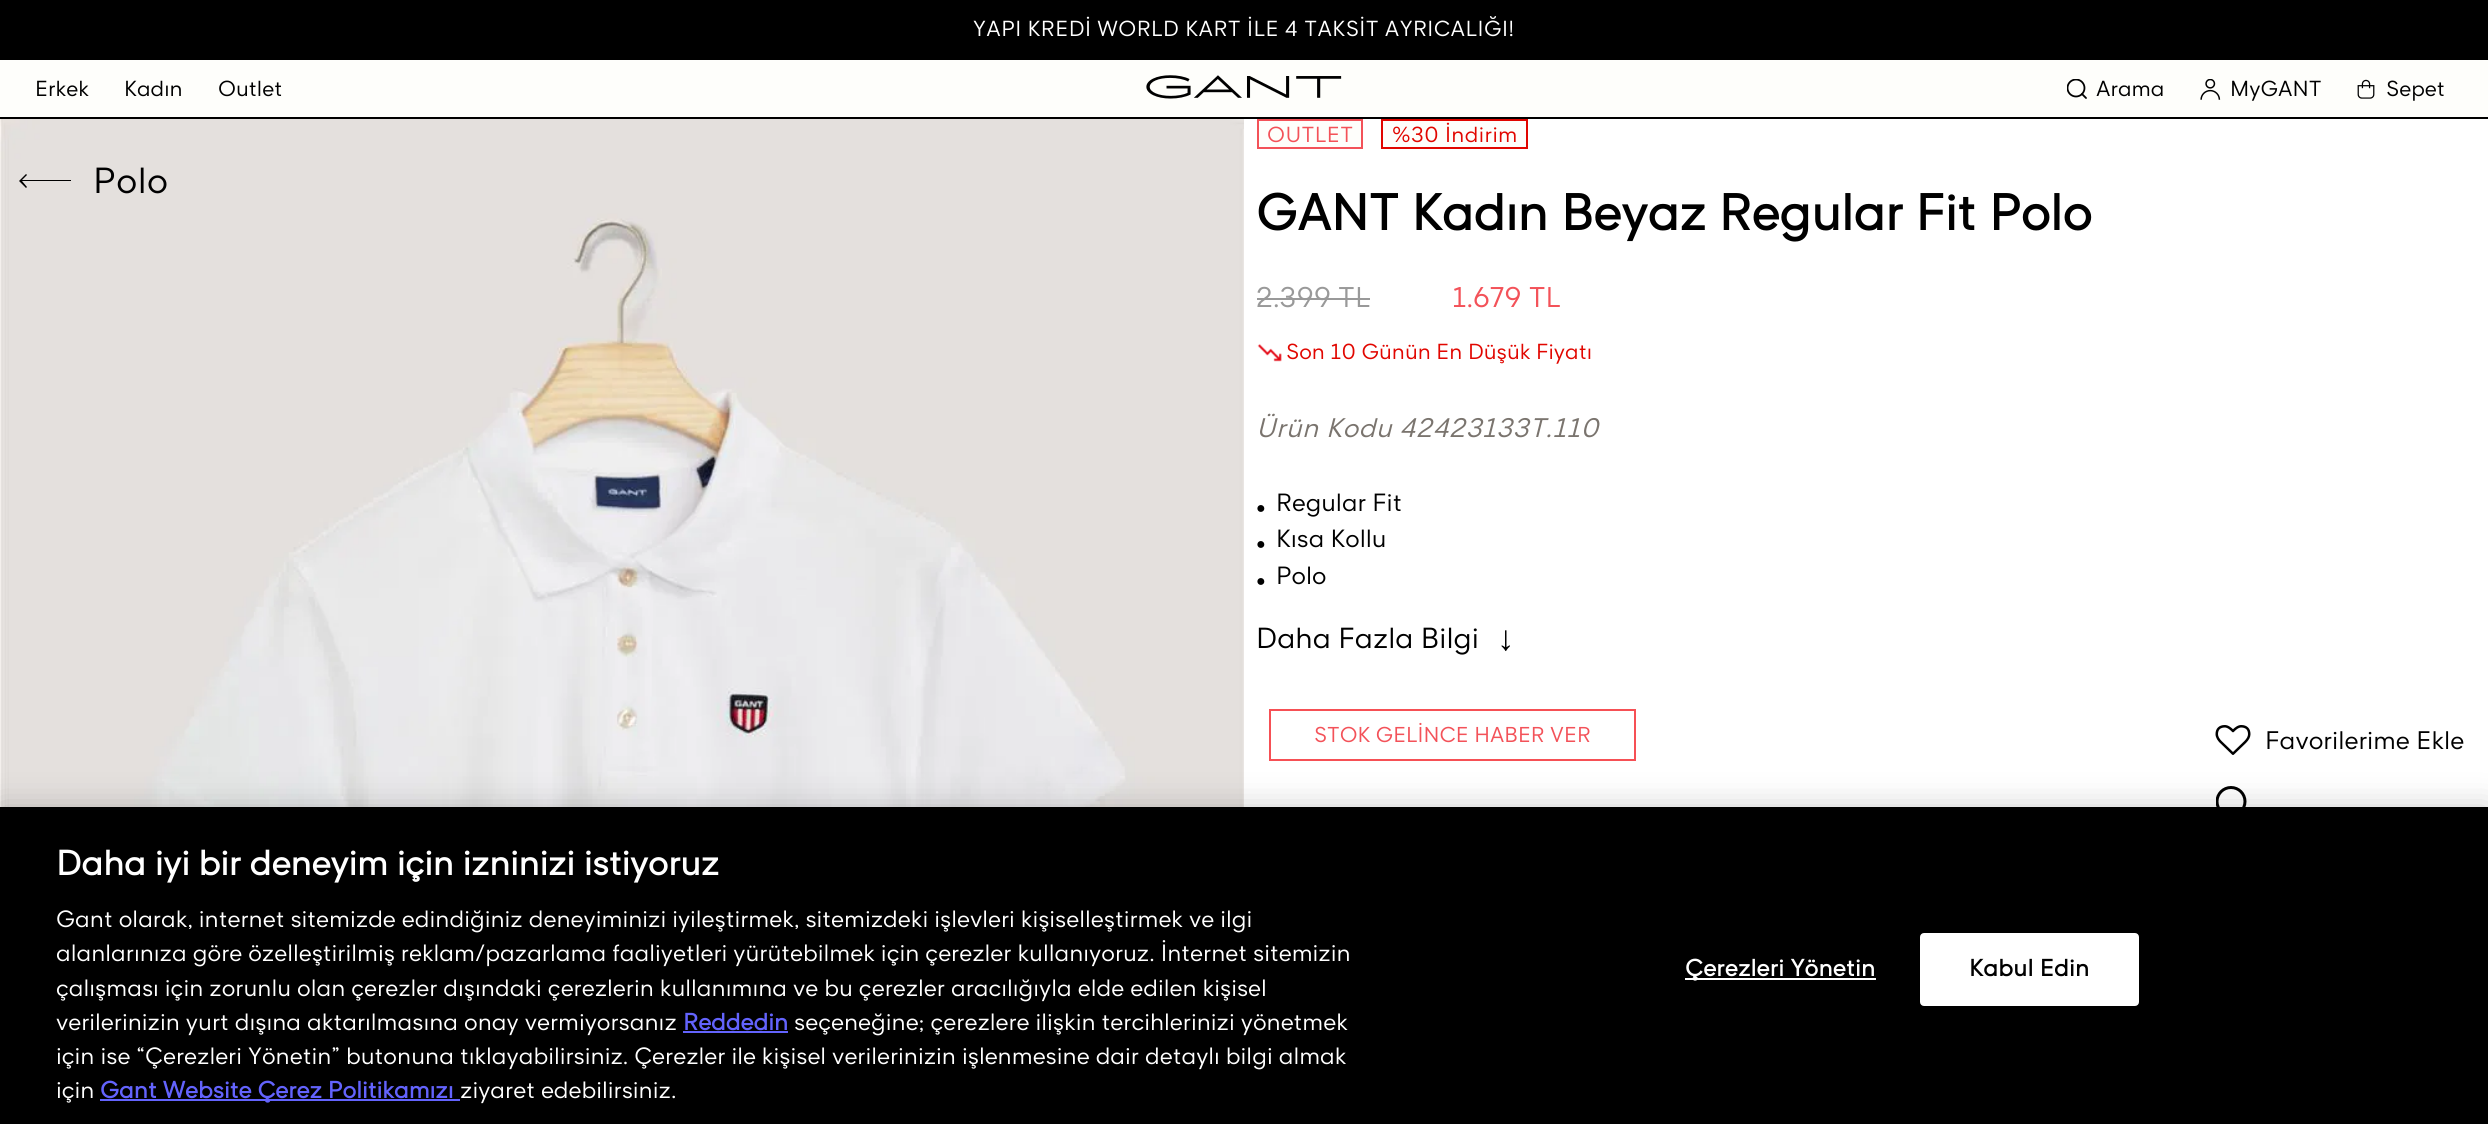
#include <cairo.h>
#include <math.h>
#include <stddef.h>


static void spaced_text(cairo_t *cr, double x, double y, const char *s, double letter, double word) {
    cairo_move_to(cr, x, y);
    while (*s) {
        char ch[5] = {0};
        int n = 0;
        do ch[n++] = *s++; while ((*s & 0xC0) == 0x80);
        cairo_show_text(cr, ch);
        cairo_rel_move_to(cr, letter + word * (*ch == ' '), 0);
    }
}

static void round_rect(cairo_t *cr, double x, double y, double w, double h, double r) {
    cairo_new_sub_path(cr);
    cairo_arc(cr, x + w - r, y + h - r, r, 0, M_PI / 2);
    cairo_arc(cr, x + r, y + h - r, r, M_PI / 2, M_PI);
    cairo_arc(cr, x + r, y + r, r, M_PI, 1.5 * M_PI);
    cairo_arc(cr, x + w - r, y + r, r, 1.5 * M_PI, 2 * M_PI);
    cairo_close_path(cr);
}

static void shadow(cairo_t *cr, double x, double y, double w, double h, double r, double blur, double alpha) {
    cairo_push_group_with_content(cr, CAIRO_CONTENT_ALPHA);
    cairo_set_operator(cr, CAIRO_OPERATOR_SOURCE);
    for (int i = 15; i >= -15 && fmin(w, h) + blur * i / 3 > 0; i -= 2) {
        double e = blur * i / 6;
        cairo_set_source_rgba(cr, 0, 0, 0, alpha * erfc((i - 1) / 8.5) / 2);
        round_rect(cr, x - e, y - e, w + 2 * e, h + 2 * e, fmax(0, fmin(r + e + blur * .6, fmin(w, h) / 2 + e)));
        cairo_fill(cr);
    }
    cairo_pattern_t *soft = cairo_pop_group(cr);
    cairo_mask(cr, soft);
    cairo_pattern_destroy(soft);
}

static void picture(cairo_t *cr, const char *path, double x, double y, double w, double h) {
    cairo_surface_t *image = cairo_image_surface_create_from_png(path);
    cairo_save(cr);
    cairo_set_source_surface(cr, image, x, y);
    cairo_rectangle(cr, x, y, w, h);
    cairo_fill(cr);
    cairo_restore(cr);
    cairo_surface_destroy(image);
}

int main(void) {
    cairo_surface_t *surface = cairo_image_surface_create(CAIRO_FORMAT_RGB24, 2488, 1124);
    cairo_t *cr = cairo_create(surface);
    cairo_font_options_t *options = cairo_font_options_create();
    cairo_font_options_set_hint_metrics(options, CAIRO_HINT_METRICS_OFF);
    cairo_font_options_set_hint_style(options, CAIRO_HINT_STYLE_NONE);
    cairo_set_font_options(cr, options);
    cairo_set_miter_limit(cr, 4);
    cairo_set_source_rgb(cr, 1, 1, 1);
    cairo_paint(cr);
    cairo_set_source_rgb(cr, 0, 0, 0);
    cairo_rectangle(cr, 0, 0, 2488, 60);
    cairo_fill(cr);
    cairo_select_font_face(cr, "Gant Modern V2", CAIRO_FONT_SLANT_NORMAL, CAIRO_FONT_WEIGHT_NORMAL);
    cairo_set_font_size(cr, 21);
    cairo_set_source_rgb(cr, 1, 1, 1);
    spaced_text(cr, 973, 36, "YAPI KREDİ WORLD KART İLE 4 TAKSİT AYRICALIĞI!", 0.4, 0);
    cairo_set_source_rgb(cr, 0.996, 0.996, 0.984);
    cairo_rectangle(cr, 0, 60, 2488, 57);
    cairo_fill(cr);
    cairo_set_source_rgb(cr, 0, 0, 0);
    cairo_rectangle(cr, 0, 117, 2488, 2);
    cairo_fill(cr);
    cairo_move_to(cr, 35, 96);
    cairo_show_text(cr, "Erkek");
    cairo_move_to(cr, 124, 96);
    cairo_show_text(cr, "Kadın");
    cairo_move_to(cr, 218, 96);
    cairo_show_text(cr, "Outlet");
    picture(cr, "img1.png", 1146, 75, 196, 24);
    cairo_new_path(cr);
    cairo_move_to(cr, 2082, 94);
    cairo_line_to(cr, 2086, 98);
    cairo_set_line_width(cr, 1.8);
    cairo_set_line_cap(cr, CAIRO_LINE_CAP_ROUND);
    cairo_set_line_join(cr, CAIRO_LINE_JOIN_ROUND);
    cairo_stroke(cr);
    cairo_save(cr);
    cairo_rectangle(cr, 2067, 79, 21, 21);
    cairo_clip(cr);
    cairo_arc(cr, 2076, 88, 8.5, 0, 2 * M_PI);
    cairo_set_line_cap(cr, CAIRO_LINE_CAP_BUTT);
    cairo_set_line_join(cr, CAIRO_LINE_JOIN_MITER);
    cairo_stroke(cr);
    cairo_restore(cr);
    cairo_move_to(cr, 2096, 96);
    cairo_show_text(cr, "Arama");
    picture(cr, "img2.png", 2200, 79, 21, 21);
    cairo_move_to(cr, 2230, 96);
    cairo_show_text(cr, "MyGANT");
    picture(cr, "img3.png", 2357, 79, 18, 20);
    cairo_move_to(cr, 2386, 96);
    cairo_show_text(cr, "Sepet");
    picture(cr, "img4.png", 0, 119, 1244, 688);
    cairo_new_path(cr);
    cairo_move_to(cr, 26, 188);
    cairo_line_to(cr, 27, 187);
    cairo_line_to(cr, 22, 181);
    cairo_line_to(cr, 71, 181);
    cairo_line_to(cr, 71, 180);
    cairo_line_to(cr, 22, 180);
    cairo_line_to(cr, 27, 175);
    cairo_line_to(cr, 26, 174);
    cairo_line_to(cr, 19, 181);
    cairo_close_path(cr);
    cairo_fill(cr);
    cairo_set_font_size(cr, 35);
    spaced_text(cr, 93, 193, "Polo", 0.5, 0);
    cairo_set_source_rgb(cr, 0.996, 0.996, 0.984);
    cairo_rectangle(cr, 1258, 120, 104, 28);
    cairo_fill_preserve(cr);
    cairo_set_source_rgb(cr, 0.953, 0.322, 0.349);
    cairo_set_line_width(cr, 2);
    cairo_set_line_cap(cr, CAIRO_LINE_CAP_BUTT);
    cairo_set_line_join(cr, CAIRO_LINE_JOIN_MITER);
    cairo_stroke(cr);
    cairo_set_font_size(cr, 21);
    spaced_text(cr, 1267, 142, "OUTLET", 0.4, 0);
    cairo_set_source_rgb(cr, 0.996, 0.996, 0.984);
    cairo_rectangle(cr, 1382, 120, 145, 28);
    cairo_fill_preserve(cr);
    cairo_set_source_rgb(cr, 0.882, 0.024, 0);
    cairo_stroke(cr);
    spaced_text(cr, 1392, 142, "%30 İndirim", 0.4, 0);
    cairo_select_font_face(cr, "Gant Modern V2", CAIRO_FONT_SLANT_NORMAL, CAIRO_FONT_WEIGHT_BOLD);
    cairo_set_font_size(cr, 49);
    cairo_set_source_rgb(cr, 0, 0, 0);
    cairo_move_to(cr, 1256, 230);
    cairo_show_text(cr, "GANT Kadın Beyaz Regular Fit Polo");
    cairo_select_font_face(cr, "Gant Modern V2", CAIRO_FONT_SLANT_NORMAL, CAIRO_FONT_WEIGHT_NORMAL);
    cairo_set_font_size(cr, 27.5);
    cairo_set_source_rgb(cr, 0.6, 0.6, 0.6);
    cairo_move_to(cr, 1256, 307);
    cairo_show_text(cr, "2.399 TL");
    cairo_rectangle(cr, 1257, 298, 113, 2);
    cairo_fill(cr);
    cairo_set_source_rgb(cr, 0.953, 0.322, 0.349);
    cairo_move_to(cr, 1452, 307);
    cairo_show_text(cr, "1.679 TL");
    picture(cr, "img5.png", 1257, 344, 25, 18);
    cairo_set_font_size(cr, 21);
    cairo_set_source_rgb(cr, 0.882, 0.024, 0);
    cairo_move_to(cr, 1286, 359);
    cairo_show_text(cr, "Son 10 Günün En Düşük Fiyatı");
    cairo_select_font_face(cr, "Gant Modern V2", CAIRO_FONT_SLANT_ITALIC, CAIRO_FONT_WEIGHT_NORMAL);
    cairo_set_font_size(cr, 25.9);
    cairo_set_source_rgb(cr, 0.478, 0.455, 0.431);
    spaced_text(cr, 1256, 437, "Ürün Kodu 42423133T.110", 0.5, 0);
    cairo_select_font_face(cr, "Liberation Sans", CAIRO_FONT_SLANT_NORMAL, CAIRO_FONT_WEIGHT_NORMAL);
    cairo_set_font_size(cr, 16);
    cairo_set_source_rgb(cr, 0, 0, 0);
    cairo_move_to(cr, 1256, 513);
    cairo_show_text(cr, "●");
    cairo_select_font_face(cr, "Gant Modern V2", CAIRO_FONT_SLANT_NORMAL, CAIRO_FONT_WEIGHT_NORMAL);
    cairo_set_font_size(cr, 24);
    cairo_move_to(cr, 1276, 511);
    cairo_show_text(cr, "Regular Fit");
    cairo_select_font_face(cr, "Liberation Sans", CAIRO_FONT_SLANT_NORMAL, CAIRO_FONT_WEIGHT_NORMAL);
    cairo_set_font_size(cr, 16);
    cairo_move_to(cr, 1256, 549);
    cairo_show_text(cr, "●");
    cairo_select_font_face(cr, "Gant Modern V2", CAIRO_FONT_SLANT_NORMAL, CAIRO_FONT_WEIGHT_NORMAL);
    cairo_set_font_size(cr, 24);
    cairo_move_to(cr, 1276, 547);
    cairo_show_text(cr, "Kısa Kollu");
    cairo_select_font_face(cr, "Liberation Sans", CAIRO_FONT_SLANT_NORMAL, CAIRO_FONT_WEIGHT_NORMAL);
    cairo_set_font_size(cr, 16);
    cairo_move_to(cr, 1256, 586);
    cairo_show_text(cr, "●");
    cairo_select_font_face(cr, "Gant Modern V2", CAIRO_FONT_SLANT_NORMAL, CAIRO_FONT_WEIGHT_NORMAL);
    cairo_set_font_size(cr, 24);
    cairo_move_to(cr, 1276, 584);
    cairo_show_text(cr, "Polo");
    cairo_set_font_size(cr, 28);
    cairo_move_to(cr, 1256, 648);
    cairo_show_text(cr, "Daha Fazla Bilgi");
    cairo_select_font_face(cr, "Liberation Sans", CAIRO_FONT_SLANT_NORMAL, CAIRO_FONT_WEIGHT_NORMAL);
    cairo_set_font_size(cr, 35);
    cairo_move_to(cr, 1497, 650);
    cairo_show_text(cr, "↓");
    cairo_rectangle(cr, 1270, 710, 365, 50);
    cairo_set_source_rgb(cr, 0.961, 0.314, 0.333);
    cairo_stroke(cr);
    cairo_select_font_face(cr, "Gant Modern V2", CAIRO_FONT_SLANT_NORMAL, CAIRO_FONT_WEIGHT_NORMAL);
    cairo_set_font_size(cr, 20.75);
    cairo_set_source_rgb(cr, 0.953, 0.322, 0.349);
    cairo_move_to(cr, 1314, 742);
    cairo_show_text(cr, "STOK GELİNCE HABER VER");
    picture(cr, "img6.png", 2215, 725, 36, 30);
    cairo_set_font_size(cr, 24.5);
    cairo_set_source_rgb(cr, 0, 0, 0);
    cairo_move_to(cr, 2265, 749);
    cairo_show_text(cr, "Favorilerime Ekle");
    cairo_save(cr);
    cairo_rectangle(cr, 2216, 786, 35, 35);
    cairo_clip(cr);
    cairo_arc(cr, 2231, 801.5, 14, 0, 2 * M_PI);
    cairo_set_line_width(cr, 3);
    cairo_stroke(cr);
    cairo_restore(cr);
    cairo_set_source_rgb(cr, 0, 0, 0);
    shadow(cr, 0, 807, 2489, 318, 0, 16, 0.2);
    cairo_set_source_rgb(cr, 0, 0, 0);
    cairo_rectangle(cr, 0, 807, 2488, 317);
    cairo_fill(cr);
    cairo_select_font_face(cr, "Gant Modern V2", CAIRO_FONT_SLANT_NORMAL, CAIRO_FONT_WEIGHT_BOLD);
    cairo_set_font_size(cr, 33.6);
    cairo_set_source_rgb(cr, 1, 1, 1);
    cairo_move_to(cr, 56, 875);
    cairo_show_text(cr, "Daha iyi bir deneyim için izninizi istiyoruz");
    cairo_select_font_face(cr, "Gant Modern V2", CAIRO_FONT_SLANT_NORMAL, CAIRO_FONT_WEIGHT_NORMAL);
    cairo_set_font_size(cr, 22.75);
    cairo_move_to(cr, 56, 927);
    cairo_show_text(cr, "Gant olarak, internet sitemizde edindiğiniz deneyiminizi iyileştirmek, sitemizdeki işlevleri kişiselleştirmek ve ilgi");
    cairo_move_to(cr, 56, 961);
    cairo_show_text(cr, "alanlarınıza göre özelleştirilmiş reklam/pazarlama faaliyetleri yürütebilmek için çerezler kullanıyoruz. İnternet sitemizin");
    cairo_move_to(cr, 56, 996);
    cairo_show_text(cr, "çalışması için zorunlu olan çerezler dışındaki çerezlerin kullanımına ve bu çerezler aracılığıyla elde edilen kişisel");
    cairo_move_to(cr, 56, 1030);
    cairo_show_text(cr, "verilerinizin yurt dışına aktarılmasına onay vermiyorsanız");
    cairo_select_font_face(cr, "Gant Modern V2", CAIRO_FONT_SLANT_NORMAL, CAIRO_FONT_WEIGHT_BOLD);
    cairo_set_source_rgb(cr, 0.388, 0.388, 0.992);
    cairo_move_to(cr, 683, 1030);
    cairo_show_text(cr, "Reddedin");
    cairo_rectangle(cr, 683, 1031, 105, 2);
    cairo_fill(cr);
    cairo_select_font_face(cr, "Gant Modern V2", CAIRO_FONT_SLANT_NORMAL, CAIRO_FONT_WEIGHT_NORMAL);
    cairo_set_source_rgb(cr, 1, 1, 1);
    cairo_move_to(cr, 794, 1030);
    cairo_show_text(cr, "seçeneğine; çerezlere ilişkin tercihlerinizi yönetmek");
    cairo_move_to(cr, 56, 1064);
    cairo_show_text(cr, "için ise “Çerezleri Yönetin” butonuna tıklayabilirsiniz. Çerezler ile kişisel verilerinizin işlenmesine dair detaylı bilgi almak");
    cairo_move_to(cr, 56, 1098);
    cairo_show_text(cr, "için");
    cairo_set_source_rgb(cr, 0.388, 0.388, 0.992);
    cairo_rectangle(cr, 100, 1099, 360, 2);
    cairo_fill(cr);
    cairo_select_font_face(cr, "Gant Modern V2", CAIRO_FONT_SLANT_NORMAL, CAIRO_FONT_WEIGHT_BOLD);
    cairo_move_to(cr, 100, 1098);
    cairo_show_text(cr, "Gant Website Çerez Politikamızı");
    cairo_select_font_face(cr, "Gant Modern V2", CAIRO_FONT_SLANT_NORMAL, CAIRO_FONT_WEIGHT_NORMAL);
    cairo_set_source_rgb(cr, 1, 1, 1);
    cairo_move_to(cr, 460, 1098);
    cairo_show_text(cr, "ziyaret edebilirsiniz.");
    cairo_rectangle(cr, 1685, 978, 191, 2);
    cairo_fill(cr);
    cairo_select_font_face(cr, "Gant Modern V2", CAIRO_FONT_SLANT_NORMAL, CAIRO_FONT_WEIGHT_BOLD);
    spaced_text(cr, 1685, 976, "Çerezleri Yönetin", 0.25, 0);
    round_rect(cr, 1921, 934, 217, 71, 3);
    cairo_fill_preserve(cr);
    cairo_stroke(cr);
    cairo_set_source_rgb(cr, 0, 0, 0);
    spaced_text(cr, 1969, 976, "Kabul Edin", 0.25, 0);
    cairo_surface_write_to_png(surface, "page.png");
    cairo_font_options_destroy(options);
    cairo_destroy(cr);
    cairo_surface_destroy(surface);
    return 0;
}
